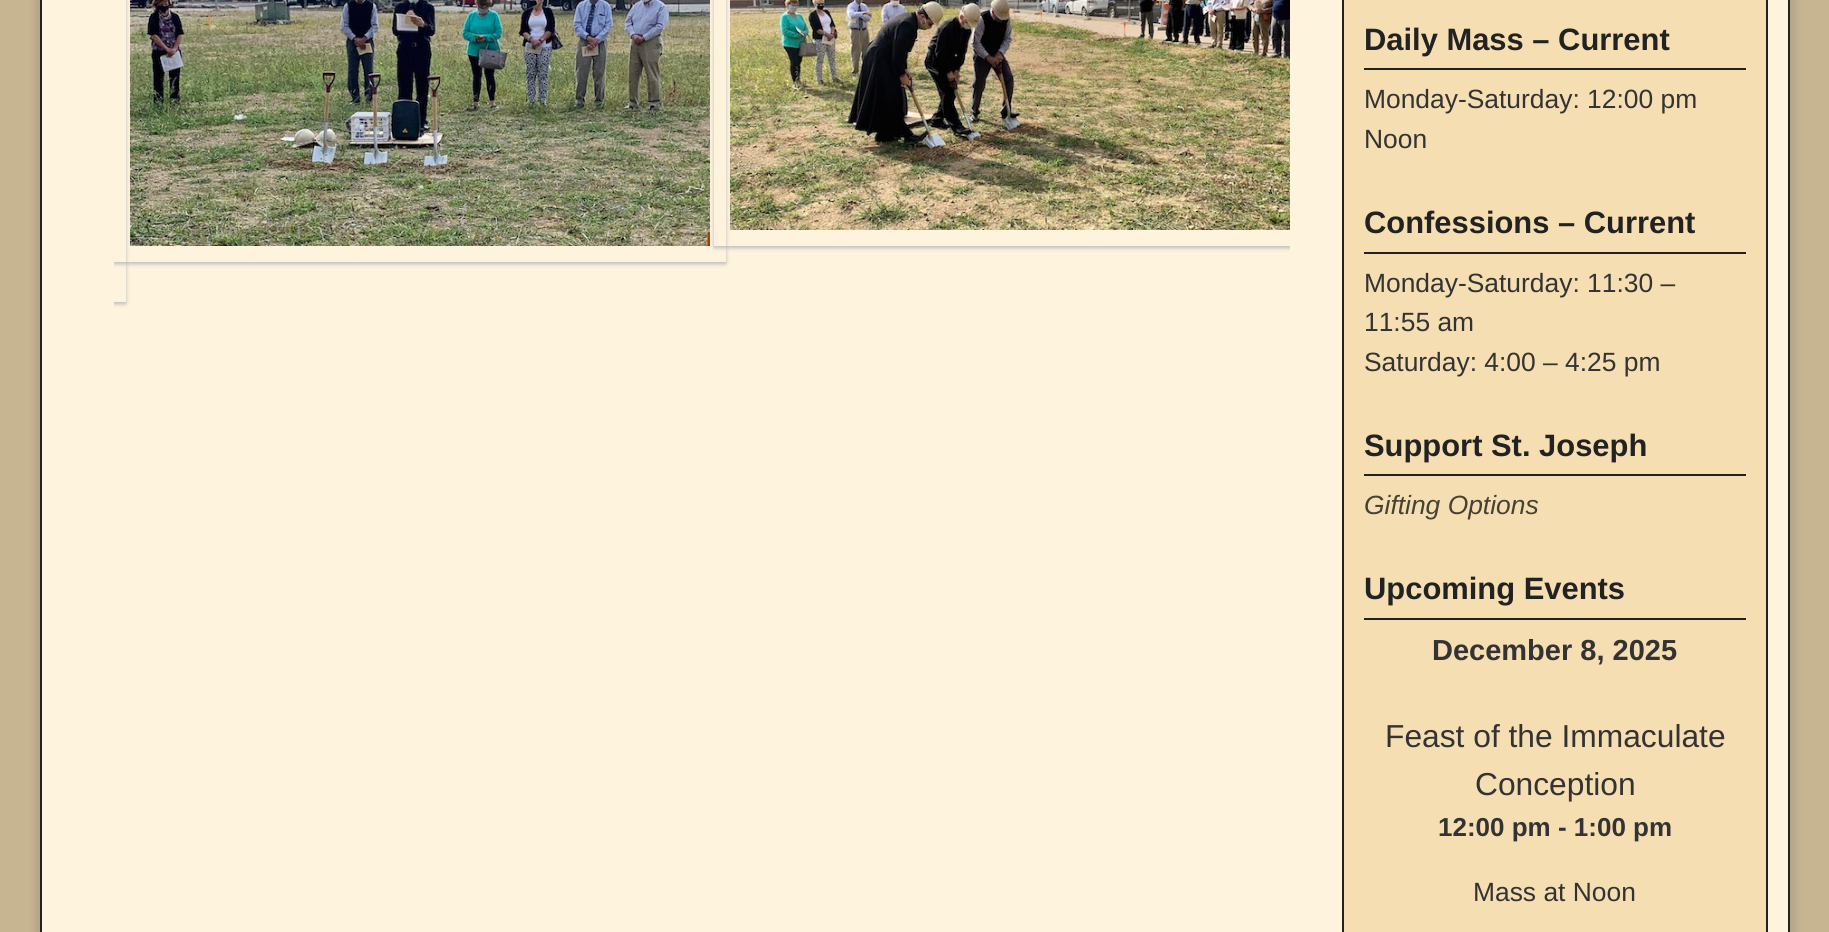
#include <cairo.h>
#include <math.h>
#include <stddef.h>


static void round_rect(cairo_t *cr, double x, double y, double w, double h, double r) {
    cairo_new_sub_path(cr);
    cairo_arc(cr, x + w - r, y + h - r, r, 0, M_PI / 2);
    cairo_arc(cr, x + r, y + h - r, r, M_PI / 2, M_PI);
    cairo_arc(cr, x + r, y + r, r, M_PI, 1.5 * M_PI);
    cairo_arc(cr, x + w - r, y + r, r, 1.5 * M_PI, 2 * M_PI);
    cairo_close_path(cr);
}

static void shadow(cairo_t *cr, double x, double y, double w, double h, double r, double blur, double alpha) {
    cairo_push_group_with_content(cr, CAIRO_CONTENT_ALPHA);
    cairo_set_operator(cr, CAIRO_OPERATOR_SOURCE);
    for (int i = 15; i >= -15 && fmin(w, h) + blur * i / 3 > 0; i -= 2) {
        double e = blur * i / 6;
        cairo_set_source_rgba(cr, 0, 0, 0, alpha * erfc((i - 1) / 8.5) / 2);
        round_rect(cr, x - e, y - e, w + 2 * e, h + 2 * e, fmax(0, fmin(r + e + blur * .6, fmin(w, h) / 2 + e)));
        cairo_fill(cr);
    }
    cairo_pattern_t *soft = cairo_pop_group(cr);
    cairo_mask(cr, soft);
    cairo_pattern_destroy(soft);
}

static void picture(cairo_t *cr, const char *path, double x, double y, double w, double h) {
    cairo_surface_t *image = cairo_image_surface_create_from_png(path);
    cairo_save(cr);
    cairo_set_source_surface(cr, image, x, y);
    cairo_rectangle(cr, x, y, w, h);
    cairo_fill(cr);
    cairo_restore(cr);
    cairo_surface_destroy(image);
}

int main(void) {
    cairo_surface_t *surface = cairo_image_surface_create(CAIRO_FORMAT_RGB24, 1829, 932);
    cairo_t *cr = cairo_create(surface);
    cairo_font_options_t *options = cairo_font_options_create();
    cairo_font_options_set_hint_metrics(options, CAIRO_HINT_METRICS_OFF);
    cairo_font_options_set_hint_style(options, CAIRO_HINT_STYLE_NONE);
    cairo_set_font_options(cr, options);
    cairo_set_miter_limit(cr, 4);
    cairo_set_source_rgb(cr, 0.78, 0.706, 0.569);
    cairo_paint(cr);
    cairo_set_source_rgb(cr, 0.498, 0.498, 0.498);
    shadow(cr, 34, -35, 1762, 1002, 26, 3, 0.25);
    cairo_set_source_rgb(cr, 0.996, 0.953, 0.867);
    cairo_rectangle(cr, 41, -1, 1748, 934);
    cairo_fill_preserve(cr);
    cairo_set_source_rgb(cr, 0.133, 0.133, 0.133);
    cairo_stroke(cr);
    cairo_save(cr);
    cairo_rectangle(cr, 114, 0, 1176, 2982);
    cairo_clip(cr);
    cairo_set_fill_rule(cr, CAIRO_FILL_RULE_EVEN_ODD);
    cairo_new_path(cr);
    cairo_move_to(cr, 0, 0);
    cairo_line_to(cr, 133, 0);
    cairo_line_to(cr, 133, 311);
    cairo_line_to(cr, 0, 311);
    cairo_close_path(cr);
    cairo_move_to(cr, -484, -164);
    cairo_line_to(cr, 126, -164);
    cairo_line_to(cr, 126, 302);
    cairo_line_to(cr, -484, 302);
    cairo_close_path(cr);
    cairo_clip(cr);
    cairo_set_source_rgb(cr, 0.733, 0.733, 0.733);
    shadow(cr, -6, -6, 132, 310, 0, 2, 1);
    cairo_restore(cr);
    cairo_save(cr);
    cairo_rectangle(cr, 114, 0, 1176, 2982);
    cairo_clip(cr);
    cairo_set_fill_rule(cr, CAIRO_FILL_RULE_EVEN_ODD);
    cairo_new_path(cr);
    cairo_move_to(cr, 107, 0);
    cairo_line_to(cr, 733, 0);
    cairo_line_to(cr, 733, 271);
    cairo_line_to(cr, 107, 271);
    cairo_close_path(cr);
    cairo_move_to(cr, 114, -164);
    cairo_line_to(cr, 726, -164);
    cairo_line_to(cr, 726, 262);
    cairo_line_to(cr, 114, 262);
    cairo_close_path(cr);
    cairo_clip(cr);
    cairo_set_source_rgb(cr, 0.733, 0.733, 0.733);
    shadow(cr, 114, -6, 612, 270, 0, 2, 1);
    cairo_restore(cr);
    picture(cr, "img1.png", 130, 0, 580, 246);
    cairo_save(cr);
    cairo_rectangle(cr, 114, 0, 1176, 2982);
    cairo_clip(cr);
    cairo_set_fill_rule(cr, CAIRO_FILL_RULE_EVEN_ODD);
    cairo_new_path(cr);
    cairo_move_to(cr, 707, 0);
    cairo_line_to(cr, 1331, 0);
    cairo_line_to(cr, 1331, 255);
    cairo_line_to(cr, 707, 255);
    cairo_close_path(cr);
    cairo_move_to(cr, 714, -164);
    cairo_line_to(cr, 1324, -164);
    cairo_line_to(cr, 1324, 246);
    cairo_line_to(cr, 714, 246);
    cairo_close_path(cr);
    cairo_clip(cr);
    cairo_set_source_rgb(cr, 0.733, 0.733, 0.733);
    shadow(cr, 714, -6, 610, 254, 0, 2, 1);
    cairo_restore(cr);
    picture(cr, "img2.png", 730, 0, 560, 230);
    cairo_set_source_rgb(cr, 0.961, 0.871, 0.702);
    cairo_rectangle(cr, 1343, -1, 424, 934);
    cairo_fill_preserve(cr);
    cairo_set_source_rgb(cr, 0.133, 0.133, 0.133);
    cairo_stroke(cr);
    cairo_rectangle(cr, 1364, 68, 382, 2);
    cairo_fill(cr);
    cairo_select_font_face(cr, "Liberation Sans", CAIRO_FONT_SLANT_NORMAL, CAIRO_FONT_WEIGHT_BOLD);
    cairo_set_font_size(cr, 30.9);
    cairo_move_to(cr, 1364, 50);
    cairo_show_text(cr, "Daily Mass – Current");
    cairo_select_font_face(cr, "Liberation Sans", CAIRO_FONT_SLANT_NORMAL, CAIRO_FONT_WEIGHT_NORMAL);
    cairo_set_font_size(cr, 26.4);
    cairo_set_source_rgb(cr, 0.2, 0.2, 0.2);
    cairo_move_to(cr, 1364, 108);
    cairo_show_text(cr, "Monday-Saturday: 12:00 pm");
    cairo_move_to(cr, 1364, 148);
    cairo_show_text(cr, "Noon");
    cairo_set_source_rgb(cr, 0.133, 0.133, 0.133);
    cairo_rectangle(cr, 1364, 252, 382, 2);
    cairo_fill(cr);
    cairo_select_font_face(cr, "Liberation Sans", CAIRO_FONT_SLANT_NORMAL, CAIRO_FONT_WEIGHT_BOLD);
    cairo_set_font_size(cr, 30.9);
    cairo_move_to(cr, 1364, 233);
    cairo_show_text(cr, "Confessions – Current");
    cairo_select_font_face(cr, "Liberation Sans", CAIRO_FONT_SLANT_NORMAL, CAIRO_FONT_WEIGHT_NORMAL);
    cairo_set_font_size(cr, 26.4);
    cairo_set_source_rgb(cr, 0.2, 0.2, 0.2);
    cairo_move_to(cr, 1364, 292);
    cairo_show_text(cr, "Monday-Saturday: 11:30 –");
    cairo_move_to(cr, 1364, 331);
    cairo_show_text(cr, "11:55 am");
    cairo_move_to(cr, 1364, 371);
    cairo_show_text(cr, "Saturday: 4:00 – 4:25 pm");
    cairo_set_source_rgb(cr, 0.133, 0.133, 0.133);
    cairo_rectangle(cr, 1364, 474, 382, 2);
    cairo_fill(cr);
    cairo_select_font_face(cr, "Liberation Sans", CAIRO_FONT_SLANT_NORMAL, CAIRO_FONT_WEIGHT_BOLD);
    cairo_set_font_size(cr, 30.9);
    cairo_move_to(cr, 1364, 456);
    cairo_show_text(cr, "Support St. Joseph");
    cairo_select_font_face(cr, "Liberation Sans", CAIRO_FONT_SLANT_ITALIC, CAIRO_FONT_WEIGHT_NORMAL);
    cairo_set_font_size(cr, 26.4);
    cairo_set_source_rgb(cr, 0.278, 0.255, 0.204);
    cairo_move_to(cr, 1364, 514);
    cairo_show_text(cr, "Gifting Options");
    cairo_set_source_rgb(cr, 0.133, 0.133, 0.133);
    cairo_rectangle(cr, 1364, 618, 382, 2);
    cairo_fill(cr);
    cairo_select_font_face(cr, "Liberation Sans", CAIRO_FONT_SLANT_NORMAL, CAIRO_FONT_WEIGHT_BOLD);
    cairo_set_font_size(cr, 30.9);
    cairo_move_to(cr, 1364, 599);
    cairo_show_text(cr, "Upcoming Events");
    cairo_set_font_size(cr, 29);
    cairo_set_source_rgb(cr, 0.2, 0.2, 0.2);
    cairo_move_to(cr, 1432, 660);
    cairo_show_text(cr, "December 8, 2025");
    cairo_select_font_face(cr, "Liberation Sans", CAIRO_FONT_SLANT_NORMAL, CAIRO_FONT_WEIGHT_NORMAL);
    cairo_set_font_size(cr, 31.75);
    cairo_move_to(cr, 1385, 747);
    cairo_show_text(cr, "Feast of the Immaculate");
    cairo_move_to(cr, 1475, 795);
    cairo_show_text(cr, "Conception");
    cairo_select_font_face(cr, "Liberation Sans", CAIRO_FONT_SLANT_NORMAL, CAIRO_FONT_WEIGHT_BOLD);
    cairo_set_font_size(cr, 26);
    cairo_move_to(cr, 1438, 836);
    cairo_show_text(cr, "12:00 pm - 1:00 pm");
    cairo_select_font_face(cr, "Liberation Sans", CAIRO_FONT_SLANT_NORMAL, CAIRO_FONT_WEIGHT_NORMAL);
    cairo_set_font_size(cr, 26.4);
    cairo_move_to(cr, 1473, 901);
    cairo_show_text(cr, "Mass at Noon");
    cairo_surface_write_to_png(surface, "page.png");
    cairo_font_options_destroy(options);
    cairo_destroy(cr);
    cairo_surface_destroy(surface);
    return 0;
}
